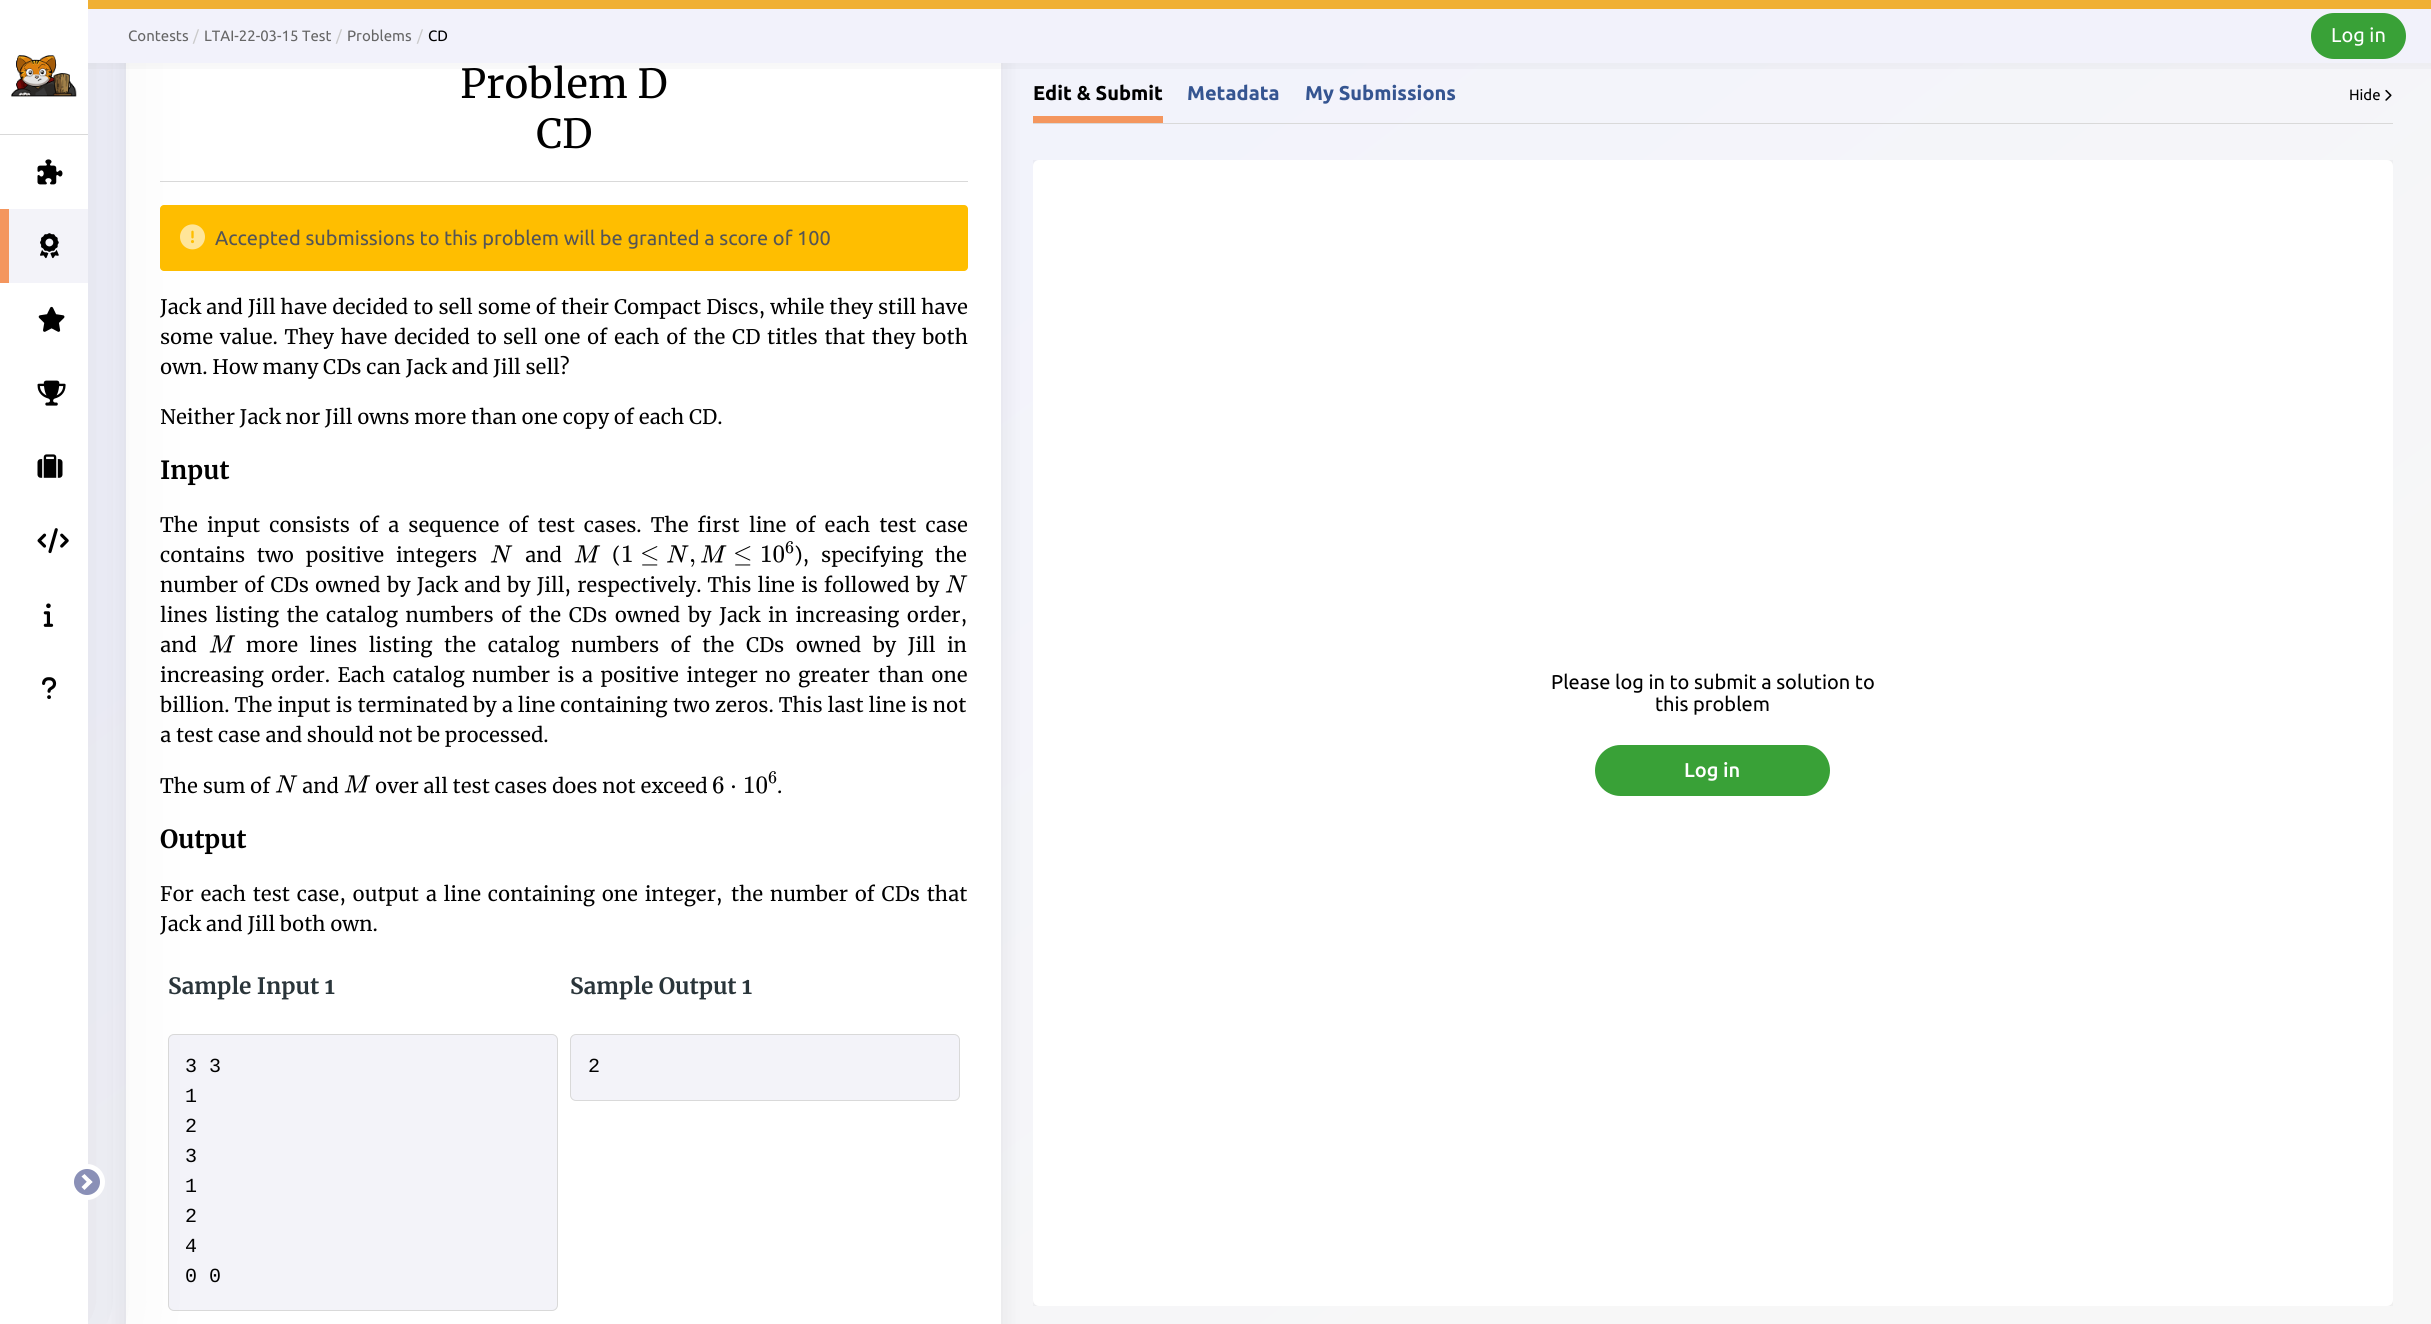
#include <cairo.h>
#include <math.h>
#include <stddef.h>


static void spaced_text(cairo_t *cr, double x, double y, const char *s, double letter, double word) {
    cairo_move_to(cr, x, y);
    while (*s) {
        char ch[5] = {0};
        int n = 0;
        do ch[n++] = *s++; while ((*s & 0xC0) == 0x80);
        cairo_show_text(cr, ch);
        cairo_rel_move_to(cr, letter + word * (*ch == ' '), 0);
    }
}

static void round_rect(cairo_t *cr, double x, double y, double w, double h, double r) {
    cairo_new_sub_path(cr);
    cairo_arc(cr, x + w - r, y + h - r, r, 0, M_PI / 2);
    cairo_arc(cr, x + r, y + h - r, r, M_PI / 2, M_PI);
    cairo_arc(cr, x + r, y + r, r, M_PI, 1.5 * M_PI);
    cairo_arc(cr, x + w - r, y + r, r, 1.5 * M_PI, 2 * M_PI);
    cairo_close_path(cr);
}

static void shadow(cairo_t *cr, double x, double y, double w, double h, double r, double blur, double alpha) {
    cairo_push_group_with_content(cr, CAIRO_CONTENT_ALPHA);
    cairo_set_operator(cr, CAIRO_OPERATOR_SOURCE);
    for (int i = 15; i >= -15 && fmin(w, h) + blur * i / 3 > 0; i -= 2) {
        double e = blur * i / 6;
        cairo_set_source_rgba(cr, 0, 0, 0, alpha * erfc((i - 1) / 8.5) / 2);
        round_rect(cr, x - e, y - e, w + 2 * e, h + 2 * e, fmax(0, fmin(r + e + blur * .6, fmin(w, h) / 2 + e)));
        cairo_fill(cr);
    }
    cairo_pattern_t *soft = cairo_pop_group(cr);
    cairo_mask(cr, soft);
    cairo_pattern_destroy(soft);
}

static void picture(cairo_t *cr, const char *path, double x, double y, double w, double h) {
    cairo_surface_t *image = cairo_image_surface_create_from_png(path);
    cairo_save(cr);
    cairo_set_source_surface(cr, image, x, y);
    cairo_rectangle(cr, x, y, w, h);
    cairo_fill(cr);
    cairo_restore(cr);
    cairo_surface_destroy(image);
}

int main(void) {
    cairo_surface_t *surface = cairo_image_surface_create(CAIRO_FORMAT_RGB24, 2431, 1324);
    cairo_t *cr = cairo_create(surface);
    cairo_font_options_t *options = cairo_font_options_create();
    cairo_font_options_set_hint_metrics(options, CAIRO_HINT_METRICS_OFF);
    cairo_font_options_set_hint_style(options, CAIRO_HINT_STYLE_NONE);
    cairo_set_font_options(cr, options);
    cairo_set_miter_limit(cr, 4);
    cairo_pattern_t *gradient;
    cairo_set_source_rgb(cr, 1, 1, 1);
    cairo_paint(cr);
    gradient = cairo_pattern_create_linear(373, -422, 2058, 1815);
    cairo_pattern_add_color_stop_rgba(gradient, 0.22, 0.945, 0.949, 0.988, 1);
    cairo_pattern_add_color_stop_rgba(gradient, 0.75, 0.969, 0.969, 0.969, 1);
    cairo_set_source(cr, gradient);
    cairo_pattern_destroy(gradient);
    cairo_rectangle(cr, 88, 63, 2343, 1261);
    cairo_fill(cr);
    cairo_set_source_rgb(cr, 0, 0, 0);
    shadow(cr, 126, 14, 875, 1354, 6, 12.5, 0.08);
    cairo_set_source_rgb(cr, 1, 1, 1);
    cairo_rectangle(cr, 126, 63, 875, 1261);
    cairo_fill(cr);
    cairo_set_source_rgb(cr, 0.851, 0.851, 0.851);
    cairo_rectangle(cr, 160, 181, 808, 1);
    cairo_fill(cr);
    cairo_set_source_rgb(cr, 1, 0.745, 0);
    round_rect(cr, 160, 205, 808, 66, 4);
    cairo_fill(cr);
    picture(cr, "img10.png", 180, 224, 25, 26);
    picture(cr, "img12.png", 209, 635, 27, 18);
    cairo_set_source_rgb(cr, 0.953, 0.953, 0.976);
    round_rect(cr, 168.5, 1034.5, 389, 276, 5.5);
    cairo_fill_preserve(cr);
    cairo_set_source_rgb(cr, 0.851, 0.851, 0.851);
    cairo_set_line_width(cr, 1);
    cairo_stroke(cr);
    cairo_set_source_rgb(cr, 0, 0, 0);
    shadow(cr, 0, 3, 88, 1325, 0, 50, 0.09);
    cairo_set_source_rgb(cr, 1, 1, 1);
    cairo_rectangle(cr, 0, 0, 88, 1324);
    cairo_fill(cr);
    cairo_set_source_rgb(cr, 0.851, 0.851, 0.851);
    cairo_rectangle(cr, 0, 134, 88, 1);
    cairo_fill(cr);
    picture(cr, "img1.png", 11, 55, 66, 42);
    picture(cr, "img2.png", 37, 159, 26, 26);
    cairo_set_source_rgb(cr, 0.953, 0.953, 0.976);
    cairo_rectangle(cr, 9, 209, 79, 74);
    cairo_fill(cr);
    cairo_set_source_rgb(cr, 0.957, 0.588, 0.369);
    cairo_rectangle(cr, 0, 209, 9, 74);
    cairo_fill(cr);
    picture(cr, "img3.png", 40, 233, 19, 26);
    picture(cr, "img4.png", 38, 306, 27, 26);
    picture(cr, "img5.png", 37, 380, 29, 26);
    picture(cr, "img6.png", 37, 454, 26, 24);
    picture(cr, "img7.png", 37, 528, 32, 26);
    picture(cr, "img8.png", 43, 603, 11, 24);
    picture(cr, "img9.png", 42, 677, 15, 22);
    cairo_set_source_rgb(cr, 0.541, 0.565, 0.718);
    cairo_arc(cr, 87, 1182, 15.5, 0, 2 * M_PI);
    cairo_fill_preserve(cr);
    cairo_set_source_rgb(cr, 1, 1, 1);
    cairo_set_line_width(cr, 5);
    cairo_stroke(cr);
    cairo_new_path(cr);
    cairo_move_to(cr, 81.5, 1176.5);
    cairo_line_to(cr, 84.5, 1174);
    cairo_line_to(cr, 92.5, 1182);
    cairo_line_to(cr, 89.5, 1184.5);
    cairo_close_path(cr);
    cairo_fill(cr);
    cairo_new_path(cr);
    cairo_move_to(cr, 81.5, 1187);
    cairo_line_to(cr, 89.5, 1179);
    cairo_line_to(cr, 92.5, 1182);
    cairo_line_to(cr, 84.5, 1190);
    cairo_close_path(cr);
    cairo_fill(cr);
    cairo_set_source_rgb(cr, 0.949, 0.949, 0.984);
    cairo_rectangle(cr, 88, 9, 2343, 54);
    cairo_fill(cr);
    cairo_set_source_rgb(cr, 0.941, 0.69, 0.204);
    cairo_rectangle(cr, 88, 0, 2343, 9);
    cairo_fill(cr);
    cairo_select_font_face(cr, "Ubuntu", CAIRO_FONT_SLANT_NORMAL, CAIRO_FONT_WEIGHT_NORMAL);
    cairo_set_font_size(cr, 15);
    cairo_set_source_rgb(cr, 0.4, 0.4, 0.4);
    cairo_move_to(cr, 128, 41);
    cairo_show_text(cr, "Contests");
    cairo_set_source_rgb(cr, 0.792, 0.792, 0.792);
    cairo_move_to(cr, 193, 41);
    cairo_show_text(cr, "/");
    cairo_set_source_rgb(cr, 0.4, 0.4, 0.4);
    cairo_move_to(cr, 204, 41);
    cairo_show_text(cr, "LTAI-22-03-15 Test");
    cairo_set_source_rgb(cr, 0.792, 0.792, 0.792);
    cairo_move_to(cr, 336, 41);
    cairo_show_text(cr, "/");
    cairo_set_source_rgb(cr, 0.4, 0.4, 0.4);
    cairo_move_to(cr, 347, 41);
    cairo_show_text(cr, "Problems");
    cairo_set_source_rgb(cr, 0.792, 0.792, 0.792);
    cairo_move_to(cr, 417, 41);
    cairo_show_text(cr, "/");
    cairo_set_source_rgb(cr, 0, 0, 0);
    cairo_move_to(cr, 428, 41);
    cairo_show_text(cr, "CD");
    cairo_set_source_rgb(cr, 0.224, 0.631, 0.216);
    round_rect(cr, 2311, 13, 95, 46, 23);
    cairo_fill(cr);
    cairo_set_font_size(cr, 20);
    cairo_set_source_rgb(cr, 1, 1, 1);
    cairo_move_to(cr, 2331, 42);
    cairo_show_text(cr, "Log in");
    gradient = cairo_pattern_create_linear(1259, 62, 1259, 88);
    cairo_pattern_add_color_stop_rgba(gradient, 0, 0, 0, 0, 0.03);
    cairo_pattern_add_color_stop_rgba(gradient, 1, 0, 0, 0, 0);
    cairo_set_source(cr, gradient);
    cairo_pattern_destroy(gradient);
    cairo_rectangle(cr, 88, 63, 2343, 6);
    cairo_fill(cr);
    cairo_select_font_face(cr, "Merriweather", CAIRO_FONT_SLANT_NORMAL, CAIRO_FONT_WEIGHT_NORMAL);
    cairo_set_font_size(cr, 40);
    cairo_set_source_rgb(cr, 0, 0, 0);
    cairo_move_to(cr, 460, 98);
    cairo_show_text(cr, "Problem D");
    cairo_move_to(cr, 536, 148);
    cairo_show_text(cr, "CD");
    cairo_select_font_face(cr, "Ubuntu", CAIRO_FONT_SLANT_NORMAL, CAIRO_FONT_WEIGHT_NORMAL);
    cairo_set_font_size(cr, 20);
    cairo_set_source_rgb(cr, 0.333, 0.333, 0.333);
    cairo_move_to(cr, 215, 245);
    cairo_show_text(cr, "Accepted submissions to this problem will be granted a score of 100");
    cairo_select_font_face(cr, "Merriweather", CAIRO_FONT_SLANT_NORMAL, CAIRO_FONT_WEIGHT_NORMAL);
    cairo_set_source_rgb(cr, 0, 0, 0);
    spaced_text(cr, 160, 314, "Jack and Jill have decided to sell some of their Compact Discs, while they still have", 0, 0.25);
    spaced_text(cr, 160, 344, "some value. They have decided to", 0, 2);
    spaced_text(cr, 503, 344, "sell one of each of the CD titles that they both", 0, 2);
    cairo_move_to(cr, 160, 374);
    cairo_show_text(cr, "own. How many CDs can Jack and Jill sell?");
    cairo_move_to(cr, 160, 424);
    cairo_show_text(cr, "Neither Jack nor Jill owns more than one copy of each CD.");
    cairo_select_font_face(cr, "Merriweather", CAIRO_FONT_SLANT_NORMAL, CAIRO_FONT_WEIGHT_BOLD);
    cairo_set_font_size(cr, 25);
    cairo_move_to(cr, 160, 479);
    cairo_show_text(cr, "Input");
    cairo_select_font_face(cr, "Merriweather", CAIRO_FONT_SLANT_NORMAL, CAIRO_FONT_WEIGHT_NORMAL);
    cairo_set_font_size(cr, 20);
    spaced_text(cr, 160, 532, "The input consists of a sequence of test cases. The first", 0, 4.25);
    spaced_text(cr, 749, 532, "line of each test case", 0, 4.25);
    spaced_text(cr, 160, 562, "contains two positive integers", 0, 7);
    picture(cr, "img11.png", 490, 545, 23, 18);
    cairo_move_to(cr, 525, 562);
    cairo_show_text(cr, "and");
    picture(cr, "img12.png", 574, 545, 27, 18);
    cairo_move_to(cr, 612, 562);
    cairo_show_text(cr, "(");
    cairo_select_font_face(cr, "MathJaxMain", CAIRO_FONT_SLANT_NORMAL, CAIRO_FONT_WEIGHT_NORMAL);
    cairo_set_font_size(cr, 25);
    cairo_move_to(cr, 621, 562);
    cairo_show_text(cr, "1");
    cairo_move_to(cr, 640, 562);
    cairo_show_text(cr, "≤");
    picture(cr, "img13.png", 667, 545, 22, 18);
    cairo_move_to(cr, 689, 562);
    cairo_show_text(cr, ",");
    picture(cr, "img14.png", 700, 545, 27, 18);
    cairo_move_to(cr, 733, 562);
    cairo_show_text(cr, "≤");
    cairo_move_to(cr, 760, 562);
    cairo_show_text(cr, "10");
    cairo_set_font_size(cr, 18);
    cairo_move_to(cr, 785, 553);
    cairo_show_text(cr, "6");
    cairo_select_font_face(cr, "Merriweather", CAIRO_FONT_SLANT_NORMAL, CAIRO_FONT_WEIGHT_NORMAL);
    cairo_set_font_size(cr, 20);
    spaced_text(cr, 794, 562, "), specifying the", 0, 7);
    spaced_text(cr, 160, 592, "number of CDs owned", 0, 1.4);
    spaced_text(cr, 387, 592, "by Jack and by Jill, respectively. This line is followed by", 0, 1.4);
    picture(cr, "img11.png", 945, 575, 23, 18);
    spaced_text(cr, 160, 622, "lines listing the", 0, 2.9);
    spaced_text(cr, 326, 622, "catalog numbers of the CDs owned by Jack in increasing order,", 0, 2.9);
    cairo_move_to(cr, 160, 652);
    cairo_show_text(cr, "and");
    spaced_text(cr, 246, 652, "more lines listing", 0, 6.75);
    spaced_text(cr, 444, 652, "the catalog numbers of the CDs owned by Jill in", 0, 6.75);
    cairo_move_to(cr, 160, 682);
    cairo_show_text(cr, "increasing");
    spaced_text(cr, 271, 682, "order. Each catalog number is a positive integer no greater", 0, 2.75);
    spaced_text(cr, 878, 682, "than one", 0, 2.75);
    spaced_text(cr, 160, 712, "billion. The input is terminated by a line containing", 0, 0.25);
    spaced_text(cr, 673, 712, "two zeros. This last line is not", 0, 0.25);
    cairo_move_to(cr, 160, 742);
    cairo_show_text(cr, "a test case and should not be processed.");
    cairo_move_to(cr, 160, 793);
    cairo_show_text(cr, "The sum of");
    picture(cr, "img11.png", 275, 775, 23, 18);
    cairo_move_to(cr, 302, 793);
    cairo_show_text(cr, "and");
    picture(cr, "img12.png", 344, 775, 27, 18);
    cairo_move_to(cr, 375, 793);
    cairo_show_text(cr, "over all test cases does not exceed");
    cairo_select_font_face(cr, "MathJaxMain", CAIRO_FONT_SLANT_NORMAL, CAIRO_FONT_WEIGHT_NORMAL);
    cairo_set_font_size(cr, 25);
    cairo_move_to(cr, 712, 793);
    cairo_show_text(cr, "6");
    cairo_move_to(cr, 730, 793);
    cairo_show_text(cr, "⋅");
    cairo_move_to(cr, 743, 793);
    cairo_show_text(cr, "10");
    cairo_set_font_size(cr, 18);
    cairo_move_to(cr, 768, 783);
    cairo_show_text(cr, "6");
    cairo_select_font_face(cr, "Merriweather", CAIRO_FONT_SLANT_NORMAL, CAIRO_FONT_WEIGHT_NORMAL);
    cairo_set_font_size(cr, 20);
    cairo_move_to(cr, 777, 793);
    cairo_show_text(cr, ".");
    cairo_select_font_face(cr, "Merriweather", CAIRO_FONT_SLANT_NORMAL, CAIRO_FONT_WEIGHT_BOLD);
    cairo_set_font_size(cr, 25);
    cairo_move_to(cr, 160, 848);
    cairo_show_text(cr, "Output");
    cairo_select_font_face(cr, "Merriweather", CAIRO_FONT_SLANT_NORMAL, CAIRO_FONT_WEIGHT_NORMAL);
    cairo_set_font_size(cr, 20);
    spaced_text(cr, 160, 901, "For each test case, output a line containing one integer,", 0, 2);
    spaced_text(cr, 731, 901, "the number of CDs that", 0, 2);
    cairo_move_to(cr, 160, 931);
    cairo_show_text(cr, "Jack and Jill both own.");
    cairo_select_font_face(cr, "Merriweather", CAIRO_FONT_SLANT_NORMAL, CAIRO_FONT_WEIGHT_BOLD);
    cairo_set_font_size(cr, 22.5);
    cairo_set_source_rgb(cr, 0.165, 0.208, 0.227);
    cairo_move_to(cr, 168, 994);
    cairo_show_text(cr, "Sample Input 1");
    cairo_move_to(cr, 570, 994);
    cairo_show_text(cr, "Sample Output 1");
    cairo_select_font_face(cr, "Liberation Mono", CAIRO_FONT_SLANT_NORMAL, CAIRO_FONT_WEIGHT_NORMAL);
    cairo_set_font_size(cr, 20);
    cairo_set_source_rgb(cr, 0, 0, 0);
    cairo_move_to(cr, 185, 1072);
    cairo_show_text(cr, "3 3");
    cairo_move_to(cr, 185, 1102);
    cairo_show_text(cr, "1");
    cairo_move_to(cr, 185, 1132);
    cairo_show_text(cr, "2");
    cairo_move_to(cr, 185, 1162);
    cairo_show_text(cr, "3");
    cairo_move_to(cr, 185, 1192);
    cairo_show_text(cr, "1");
    cairo_move_to(cr, 185, 1222);
    cairo_show_text(cr, "2");
    cairo_move_to(cr, 185, 1252);
    cairo_show_text(cr, "4");
    cairo_move_to(cr, 185, 1282);
    cairo_show_text(cr, "0 0");
    cairo_set_source_rgb(cr, 0.953, 0.953, 0.976);
    round_rect(cr, 570.5, 1034.5, 389, 66, 5.5);
    cairo_fill_preserve(cr);
    cairo_set_source_rgb(cr, 0.851, 0.851, 0.851);
    cairo_set_line_width(cr, 1);
    cairo_stroke(cr);
    cairo_set_source_rgb(cr, 0, 0, 0);
    cairo_move_to(cr, 588, 1072);
    cairo_show_text(cr, "2");
    cairo_set_source_rgb(cr, 0.851, 0.851, 0.851);
    cairo_rectangle(cr, 1033, 123, 1360, 1);
    cairo_fill(cr);
    cairo_set_source_rgb(cr, 0.957, 0.588, 0.369);
    cairo_rectangle(cr, 1033, 116, 130, 7);
    cairo_fill(cr);
    cairo_select_font_face(cr, "Ubuntu", CAIRO_FONT_SLANT_NORMAL, CAIRO_FONT_WEIGHT_BOLD);
    cairo_set_source_rgb(cr, 0, 0, 0);
    cairo_move_to(cr, 1033, 100);
    cairo_show_text(cr, "Edit & Submit");
    cairo_set_source_rgb(cr, 0.208, 0.333, 0.569);
    cairo_move_to(cr, 1187, 100);
    cairo_show_text(cr, "Metadata");
    cairo_move_to(cr, 1305, 100);
    cairo_show_text(cr, "My Submissions");
    cairo_select_font_face(cr, "Ubuntu", CAIRO_FONT_SLANT_NORMAL, CAIRO_FONT_WEIGHT_NORMAL);
    cairo_set_font_size(cr, 15);
    cairo_set_source_rgb(cr, 0, 0, 0);
    cairo_move_to(cr, 2349, 100);
    cairo_show_text(cr, "Hide");
    picture(cr, "img15.png", 2385, 89, 7, 12);
    cairo_save(cr);
    cairo_rectangle(cr, 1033, 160, 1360, 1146);
    cairo_clip(cr);
    cairo_set_source_rgb(cr, 0, 0, 0);
    shadow(cr, 1033, 161, 1360, 1147, 6, 12.5, 0.08);
    cairo_restore(cr);
    cairo_set_source_rgb(cr, 1, 1, 1);
    round_rect(cr, 1033, 160, 1360, 1146, 6);
    cairo_fill(cr);
    cairo_set_font_size(cr, 20);
    cairo_set_source_rgb(cr, 0, 0, 0);
    cairo_move_to(cr, 1551, 689);
    cairo_show_text(cr, "Please log in to submit a solution to");
    cairo_move_to(cr, 1655, 711);
    cairo_show_text(cr, "this problem");
    cairo_set_source_rgb(cr, 0.224, 0.631, 0.216);
    round_rect(cr, 1595, 745, 235, 51, 25.5);
    cairo_fill(cr);
    cairo_select_font_face(cr, "Ubuntu Medium", CAIRO_FONT_SLANT_NORMAL, CAIRO_FONT_WEIGHT_NORMAL);
    cairo_set_source_rgb(cr, 1, 1, 1);
    cairo_move_to(cr, 1684, 777);
    cairo_show_text(cr, "Log in");
    cairo_surface_write_to_png(surface, "page.png");
    cairo_font_options_destroy(options);
    cairo_destroy(cr);
    cairo_surface_destroy(surface);
    return 0;
}
